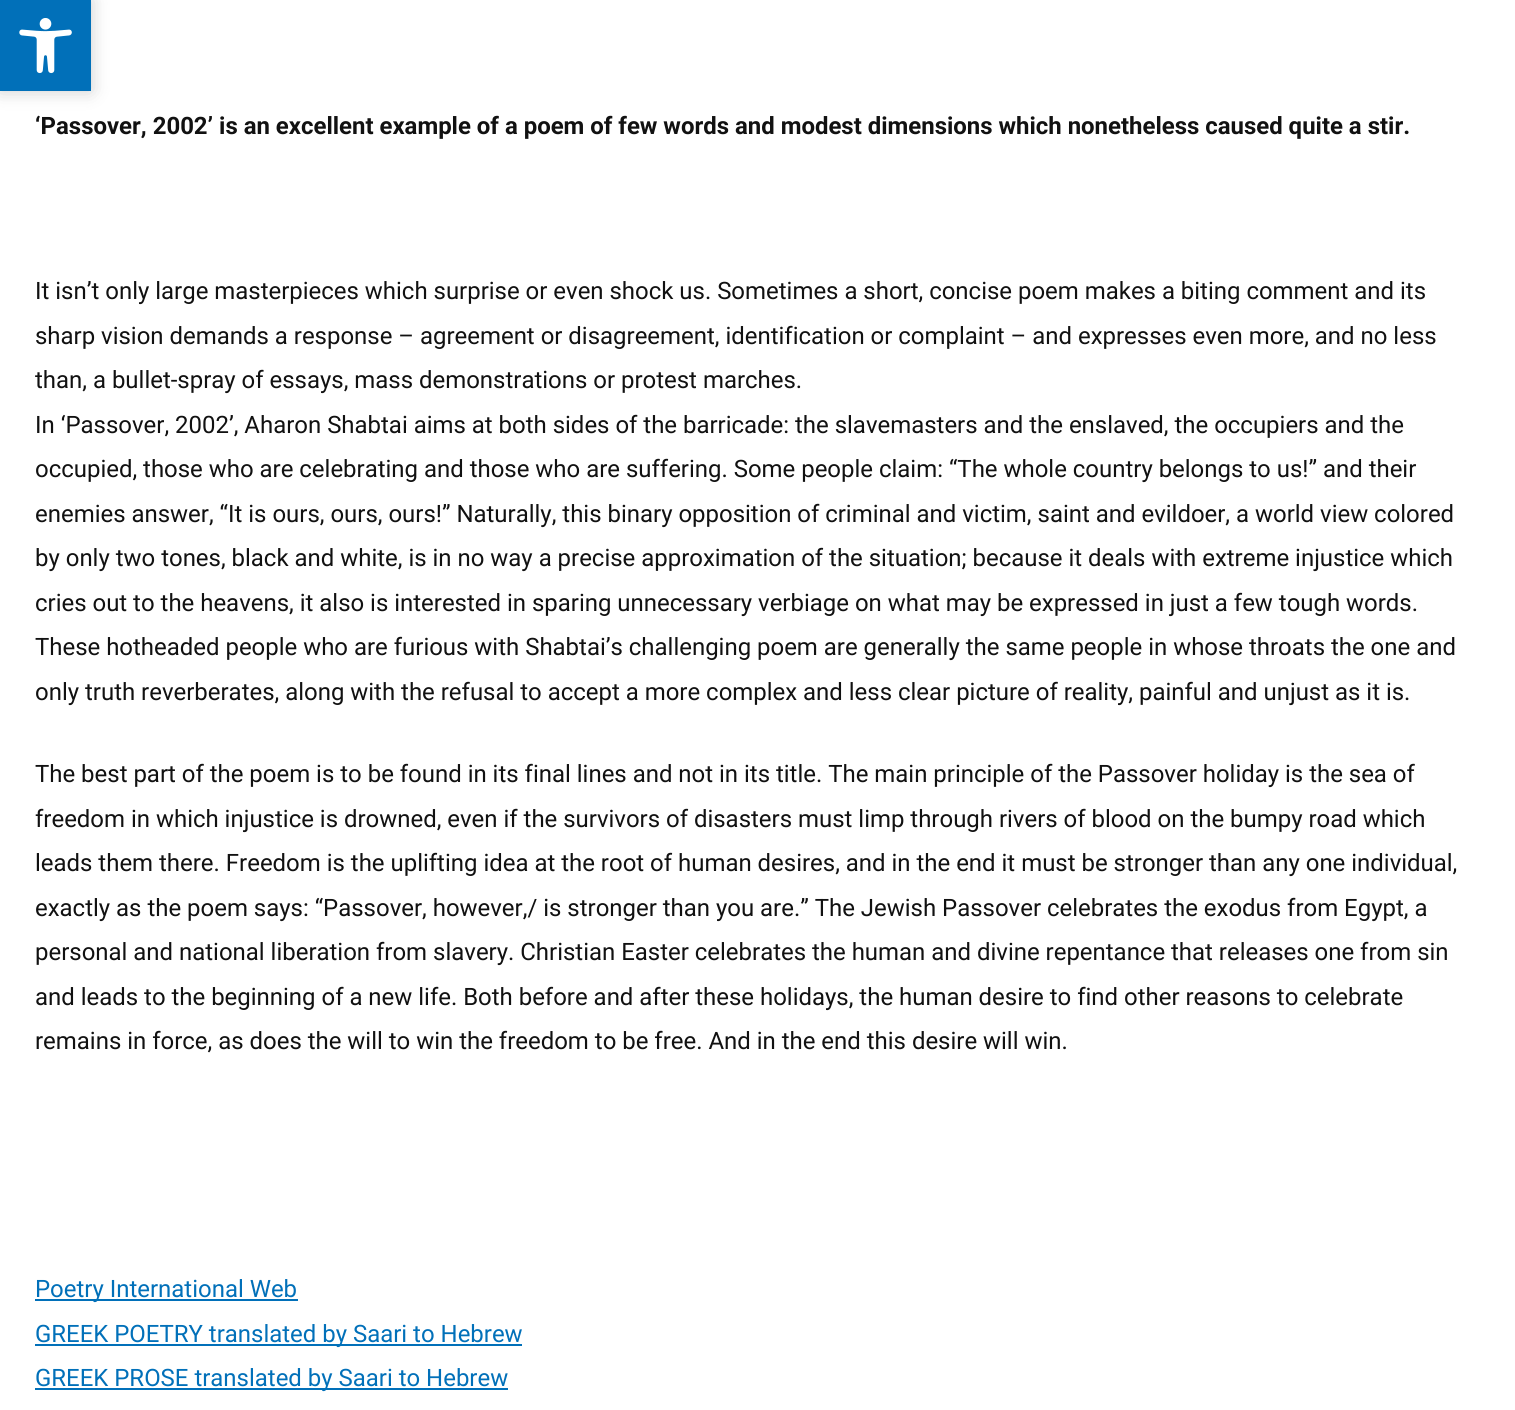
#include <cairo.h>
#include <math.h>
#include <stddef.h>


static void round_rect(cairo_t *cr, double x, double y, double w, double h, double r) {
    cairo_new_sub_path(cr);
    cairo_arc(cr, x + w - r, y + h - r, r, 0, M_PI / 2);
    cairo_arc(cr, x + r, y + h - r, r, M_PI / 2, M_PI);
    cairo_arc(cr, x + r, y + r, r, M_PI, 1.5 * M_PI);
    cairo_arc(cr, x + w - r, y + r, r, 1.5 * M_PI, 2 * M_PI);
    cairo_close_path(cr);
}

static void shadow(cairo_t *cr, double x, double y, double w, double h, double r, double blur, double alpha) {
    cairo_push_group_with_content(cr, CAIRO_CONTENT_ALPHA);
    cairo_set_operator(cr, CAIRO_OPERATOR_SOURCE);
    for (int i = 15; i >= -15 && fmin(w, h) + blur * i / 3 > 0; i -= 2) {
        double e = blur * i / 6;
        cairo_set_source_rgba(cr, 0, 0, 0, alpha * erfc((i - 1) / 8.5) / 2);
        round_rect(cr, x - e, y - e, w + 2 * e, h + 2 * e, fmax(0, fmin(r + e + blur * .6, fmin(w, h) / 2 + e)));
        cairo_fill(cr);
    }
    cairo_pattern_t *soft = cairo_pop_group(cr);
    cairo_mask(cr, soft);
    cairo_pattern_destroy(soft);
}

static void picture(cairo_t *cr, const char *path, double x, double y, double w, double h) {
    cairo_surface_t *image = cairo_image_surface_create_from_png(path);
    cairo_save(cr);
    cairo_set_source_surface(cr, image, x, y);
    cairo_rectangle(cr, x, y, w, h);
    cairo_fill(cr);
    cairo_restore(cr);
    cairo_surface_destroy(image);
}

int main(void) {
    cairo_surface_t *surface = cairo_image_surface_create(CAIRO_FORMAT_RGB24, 1515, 1410);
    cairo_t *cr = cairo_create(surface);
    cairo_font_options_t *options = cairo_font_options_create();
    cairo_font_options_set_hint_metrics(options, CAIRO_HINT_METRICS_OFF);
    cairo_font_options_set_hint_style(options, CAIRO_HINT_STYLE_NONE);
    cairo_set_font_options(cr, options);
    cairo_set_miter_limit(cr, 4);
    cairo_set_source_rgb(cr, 1, 1, 1);
    cairo_paint(cr);
    cairo_set_source_rgb(cr, 0, 0, 0);
    shadow(cr, 0, 0, 91, 91, 0, 9, 0.2);
    cairo_set_source_rgb(cr, 0.004, 0.439, 0.725);
    cairo_rectangle(cr, 0, 0, 91, 91);
    cairo_fill(cr);
    picture(cr, "img1.png", 19, 18, 53, 56);
    cairo_select_font_face(cr, "Roboto", CAIRO_FONT_SLANT_NORMAL, CAIRO_FONT_WEIGHT_BOLD);
    cairo_set_font_size(cr, 23.95);
    cairo_set_source_rgb(cr, 0.067, 0.067, 0.067);
    cairo_move_to(cr, 35, 134);
    cairo_show_text(cr, "‘Passover, 2002’ is an excellent example of a poem of few words and modest dimensions which nonetheless caused quite a stir.");
    cairo_select_font_face(cr, "Roboto", CAIRO_FONT_SLANT_NORMAL, CAIRO_FONT_WEIGHT_NORMAL);
    cairo_move_to(cr, 35, 299);
    cairo_show_text(cr, "It isn’t only large masterpieces which surprise or even shock us. Sometimes a short, concise poem makes a biting comment and its");
    cairo_move_to(cr, 35, 344);
    cairo_show_text(cr, "sharp vision demands a response – agreement or disagreement, identification or complaint – and expresses even more, and no less");
    cairo_move_to(cr, 35, 388);
    cairo_show_text(cr, "than, a bullet-spray of essays, mass demonstrations or protest marches.");
    cairo_move_to(cr, 35, 433);
    cairo_show_text(cr, "In ‘Passover, 2002’, Aharon Shabtai aims at both sides of the barricade: the slavemasters and the enslaved, the occupiers and the");
    cairo_move_to(cr, 35, 477);
    cairo_show_text(cr, "occupied, those who are celebrating and those who are suffering. Some people claim: “The whole country belongs to us!” and their");
    cairo_move_to(cr, 35, 522);
    cairo_show_text(cr, "enemies answer, “It is ours, ours, ours!” Naturally, this binary opposition of criminal and victim, saint and evildoer, a world view colored");
    cairo_move_to(cr, 35, 566);
    cairo_show_text(cr, "by only two tones, black and white, is in no way a precise approximation of the situation; because it deals with extreme injustice which");
    cairo_move_to(cr, 35, 611);
    cairo_show_text(cr, "cries out to the heavens, it also is interested in sparing unnecessary verbiage on what may be expressed in just a few tough words.");
    cairo_move_to(cr, 35, 655);
    cairo_show_text(cr, "These hotheaded people who are furious with Shabtai’s challenging poem are generally the same people in whose throats the one and");
    cairo_move_to(cr, 35, 700);
    cairo_show_text(cr, "only truth reverberates, along with the refusal to accept a more complex and less clear picture of reality, painful and unjust as it is.");
    cairo_move_to(cr, 35, 782);
    cairo_show_text(cr, "The best part of the poem is to be found in its final lines and not in its title. The main principle of the Passover holiday is the sea of");
    cairo_move_to(cr, 35, 827);
    cairo_show_text(cr, "freedom in which injustice is drowned, even if the survivors of disasters must limp through rivers of blood on the bumpy road which");
    cairo_move_to(cr, 35, 871);
    cairo_show_text(cr, "leads them there. Freedom is the uplifting idea at the root of human desires, and in the end it must be stronger than any one individual,");
    cairo_move_to(cr, 35, 916);
    cairo_show_text(cr, "exactly as the poem says: “Passover, however,/ is stronger than you are.” The Jewish Passover celebrates the exodus from Egypt, a");
    cairo_move_to(cr, 35, 960);
    cairo_show_text(cr, "personal and national liberation from slavery. Christian Easter celebrates the human and divine repentance that releases one from sin");
    cairo_move_to(cr, 35, 1005);
    cairo_show_text(cr, "and leads to the beginning of a new life. Both before and after these holidays, the human desire to find other reasons to celebrate");
    cairo_move_to(cr, 35, 1049);
    cairo_show_text(cr, "remains in force, as does the will to win the freedom to be free. And in the end this desire will win.");
    cairo_set_source_rgb(cr, 0.004, 0.439, 0.725);
    cairo_rectangle(cr, 35, 1299, 263, 2);
    cairo_fill(cr);
    cairo_move_to(cr, 35, 1297);
    cairo_show_text(cr, "Poetry International Web");
    cairo_rectangle(cr, 35, 1344, 487, 2);
    cairo_fill(cr);
    cairo_move_to(cr, 35, 1342);
    cairo_show_text(cr, "GREEK POETRY translated by Saari to Hebrew");
    cairo_rectangle(cr, 35, 1388, 473, 2);
    cairo_fill(cr);
    cairo_move_to(cr, 35, 1386);
    cairo_show_text(cr, "GREEK PROSE translated by Saari to Hebrew");
    cairo_surface_write_to_png(surface, "page.png");
    cairo_font_options_destroy(options);
    cairo_destroy(cr);
    cairo_surface_destroy(surface);
    return 0;
}
